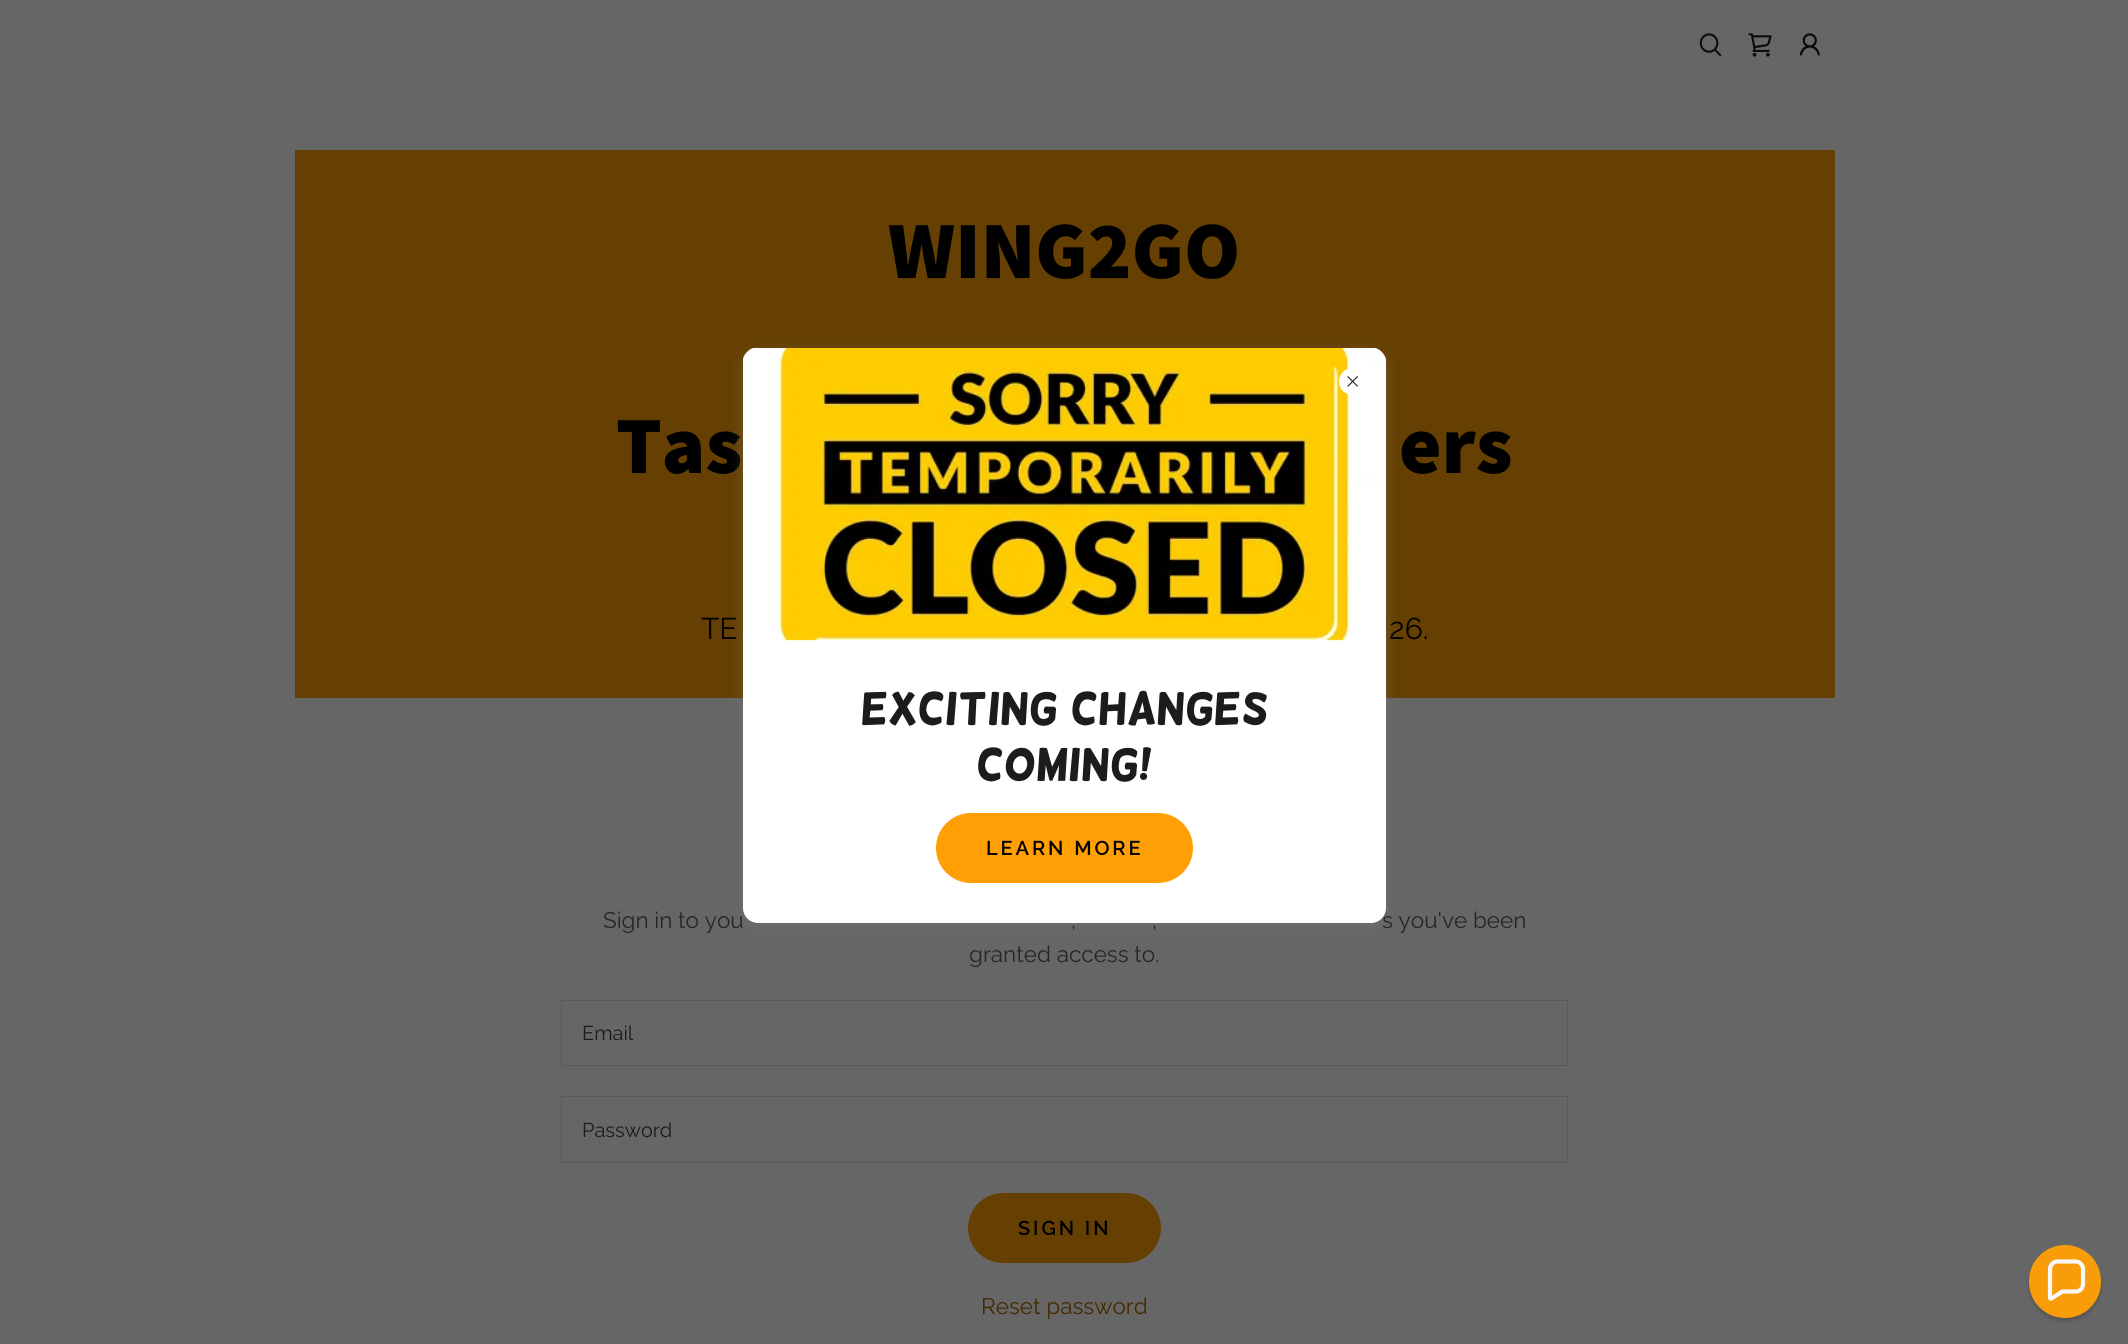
#include <cairo.h>
#include <math.h>
#include <stddef.h>


static void spaced_text(cairo_t *cr, double x, double y, const char *s, double letter, double word) {
    cairo_move_to(cr, x, y);
    while (*s) {
        char ch[5] = {0};
        int n = 0;
        do ch[n++] = *s++; while ((*s & 0xC0) == 0x80);
        cairo_show_text(cr, ch);
        cairo_rel_move_to(cr, letter + word * (*ch == ' '), 0);
    }
}

static void round_rect(cairo_t *cr, double x, double y, double w, double h, double r) {
    cairo_new_sub_path(cr);
    cairo_arc(cr, x + w - r, y + h - r, r, 0, M_PI / 2);
    cairo_arc(cr, x + r, y + h - r, r, M_PI / 2, M_PI);
    cairo_arc(cr, x + r, y + r, r, M_PI, 1.5 * M_PI);
    cairo_arc(cr, x + w - r, y + r, r, 1.5 * M_PI, 2 * M_PI);
    cairo_close_path(cr);
}

static void shadow(cairo_t *cr, double x, double y, double w, double h, double r, double blur, double alpha) {
    cairo_push_group_with_content(cr, CAIRO_CONTENT_ALPHA);
    cairo_set_operator(cr, CAIRO_OPERATOR_SOURCE);
    for (int i = 15; i >= -15 && fmin(w, h) + blur * i / 3 > 0; i -= 2) {
        double e = blur * i / 6;
        cairo_set_source_rgba(cr, 0, 0, 0, alpha * erfc((i - 1) / 8.5) / 2);
        round_rect(cr, x - e, y - e, w + 2 * e, h + 2 * e, fmax(0, fmin(r + e + blur * .6, fmin(w, h) / 2 + e)));
        cairo_fill(cr);
    }
    cairo_pattern_t *soft = cairo_pop_group(cr);
    cairo_mask(cr, soft);
    cairo_pattern_destroy(soft);
}

static void picture(cairo_t *cr, const char *path, double x, double y, double w, double h) {
    cairo_surface_t *image = cairo_image_surface_create_from_png(path);
    cairo_save(cr);
    cairo_set_source_surface(cr, image, x, y);
    cairo_rectangle(cr, x, y, w, h);
    cairo_fill(cr);
    cairo_restore(cr);
    cairo_surface_destroy(image);
}

int main(void) {
    cairo_surface_t *surface = cairo_image_surface_create(CAIRO_FORMAT_RGB24, 2128, 1344);
    cairo_t *cr = cairo_create(surface);
    cairo_font_options_t *options = cairo_font_options_create();
    cairo_font_options_set_hint_metrics(options, CAIRO_HINT_METRICS_OFF);
    cairo_font_options_set_hint_style(options, CAIRO_HINT_STYLE_NONE);
    cairo_set_font_options(cr, options);
    cairo_set_miter_limit(cr, 4);
    cairo_set_source_rgb(cr, 0.4, 0.4, 0.4);
    cairo_paint(cr);
    picture(cr, "img1.png", 1699, 33, 23, 24);
    picture(cr, "img2.png", 1748, 33, 24, 24);
    picture(cr, "img3.png", 1799, 33, 21, 23);
    cairo_set_source_rgb(cr, 0.4, 0.251, 0.008);
    cairo_rectangle(cr, 295, 150, 1540, 548);
    cairo_fill(cr);
    cairo_select_font_face(cr, "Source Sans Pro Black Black", CAIRO_FONT_SLANT_NORMAL, CAIRO_FONT_WEIGHT_NORMAL);
    cairo_set_font_size(cr, 81.25);
    cairo_set_source_rgb(cr, 0, 0, 0);
    cairo_move_to(cr, 888, 278);
    cairo_show_text(cr, "WING2GO");
    cairo_move_to(cr, 616, 473);
    cairo_show_text(cr, "Tas");
    cairo_move_to(cr, 1399, 473);
    cairo_show_text(cr, "ers");
    cairo_select_font_face(cr, "Raleway", CAIRO_FONT_SLANT_NORMAL, CAIRO_FONT_WEIGHT_NORMAL);
    cairo_set_font_size(cr, 30);
    cairo_move_to(cr, 701, 639);
    cairo_show_text(cr, "TE");
    cairo_move_to(cr, 1389, 639);
    cairo_show_text(cr, "26.");
    cairo_set_source_rgb(cr, 0.459, 0.459, 0.459);
    shadow(cr, 743, 353, 643, 575, 15, 7.5, 0.4);
    cairo_set_font_size(cr, 22.5);
    cairo_set_source_rgb(cr, 0.149, 0.149, 0.149);
    cairo_move_to(cr, 1382, 928);
    cairo_show_text(cr, "s you've been");
    cairo_set_source_rgb(cr, 1, 1, 1);
    round_rect(cr, 743, 348, 643, 575, 15);
    cairo_fill(cr);
    picture(cr, "img5.png", 743, 348, 643, 293);
    cairo_arc(cr, 1352.5, 381.5, 13.5, 0, 2 * M_PI);
    cairo_fill(cr);
    picture(cr, "img4.png", 1347, 376, 11, 11);
    cairo_select_font_face(cr, "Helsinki", CAIRO_FONT_SLANT_NORMAL, CAIRO_FONT_WEIGHT_NORMAL);
    cairo_set_font_size(cr, 45);
    cairo_set_source_rgb(cr, 0.11, 0.11, 0.11);
    cairo_move_to(cr, 861, 724);
    cairo_show_text(cr, "Exciting changes");
    cairo_move_to(cr, 976, 780);
    cairo_show_text(cr, "coming!");
    cairo_set_source_rgb(cr, 1, 0.624, 0.02);
    round_rect(cr, 936, 813, 257, 70, 35);
    cairo_fill(cr);
    cairo_select_font_face(cr, "Raleway SemiBold", CAIRO_FONT_SLANT_NORMAL, CAIRO_FONT_WEIGHT_NORMAL);
    cairo_set_font_size(cr, 20);
    cairo_set_source_rgb(cr, 0, 0, 0);
    spaced_text(cr, 986, 855, "LEARN MORE", 2.9, 0);
    cairo_select_font_face(cr, "Raleway", CAIRO_FONT_SLANT_NORMAL, CAIRO_FONT_WEIGHT_NORMAL);
    cairo_set_font_size(cr, 22.5);
    cairo_set_source_rgb(cr, 0.149, 0.149, 0.149);
    cairo_move_to(cr, 603, 928);
    cairo_show_text(cr, "Sign in to you");
    cairo_move_to(cr, 1071, 928);
    cairo_show_text(cr, ",");
    cairo_move_to(cr, 1152, 928);
    cairo_show_text(cr, ",");
    cairo_move_to(cr, 969, 962);
    cairo_show_text(cr, "granted access to.");
    cairo_rectangle(cr, 561.5, 1000.5, 1006, 65);
    cairo_set_source_rgb(cr, 0.353, 0.353, 0.353);
    cairo_set_line_width(cr, 1);
    cairo_stroke(cr);
    cairo_set_font_size(cr, 20);
    cairo_set_source_rgb(cr, 0.11, 0.11, 0.11);
    cairo_move_to(cr, 582, 1040);
    cairo_show_text(cr, "Email");
    cairo_rectangle(cr, 561.5, 1096.5, 1006, 66);
    cairo_set_source_rgb(cr, 0.353, 0.353, 0.353);
    cairo_stroke(cr);
    cairo_set_source_rgb(cr, 0.11, 0.11, 0.11);
    cairo_move_to(cr, 582, 1137);
    cairo_show_text(cr, "Password");
    cairo_set_source_rgb(cr, 0.4, 0.251, 0.008);
    round_rect(cr, 968, 1193, 193, 70, 35);
    cairo_fill(cr);
    cairo_select_font_face(cr, "Raleway SemiBold", CAIRO_FONT_SLANT_NORMAL, CAIRO_FONT_WEIGHT_NORMAL);
    cairo_set_source_rgb(cr, 0, 0, 0);
    spaced_text(cr, 1018, 1235, "SIGN IN", 2.9, 0);
    cairo_select_font_face(cr, "Raleway", CAIRO_FONT_SLANT_NORMAL, CAIRO_FONT_WEIGHT_NORMAL);
    cairo_set_font_size(cr, 22.5);
    cairo_set_source_rgb(cr, 0.263, 0.165, 0);
    cairo_move_to(cr, 981, 1314);
    cairo_show_text(cr, "Reset password");
    cairo_set_source_rgb(cr, 0.02, 0.02, 0.02);
    shadow(cr, 2029, 1249, 72, 72, 36, 2, 0.2);
    cairo_set_source_rgb(cr, 0.969, 0.612, 0.039);
    round_rect(cr, 2029, 1245, 72, 73, 36);
    cairo_fill(cr);
    cairo_new_path(cr);
    cairo_move_to(cr, 2075.5, 1261.5);
    cairo_line_to(cr, 2057.5, 1261.5);
    cairo_curve_to(cr, 2053.5, 1261.5, 2050, 1265, 2050, 1269);
    cairo_line_to(cr, 2050, 1298);
    cairo_curve_to(cr, 2050, 1298.5, 2051, 1299, 2051.5, 1298.5);
    cairo_line_to(cr, 2060, 1293);
    cairo_curve_to(cr, 2061, 1292, 2062, 1291.5, 2063, 1291.5);
    cairo_line_to(cr, 2075.5, 1291.5);
    cairo_curve_to(cr, 2079.5, 1291.5, 2083, 1288.5, 2083, 1284);
    cairo_line_to(cr, 2083, 1269);
    cairo_curve_to(cr, 2083, 1265, 2079.5, 1261.5, 2075.5, 1261.5);
    cairo_close_path(cr);
    cairo_set_source_rgb(cr, 0.969, 0.969, 0.969);
    cairo_set_line_width(cr, 4.2);
    cairo_stroke(cr);
    cairo_surface_write_to_png(surface, "page.png");
    cairo_font_options_destroy(options);
    cairo_destroy(cr);
    cairo_surface_destroy(surface);
    return 0;
}
